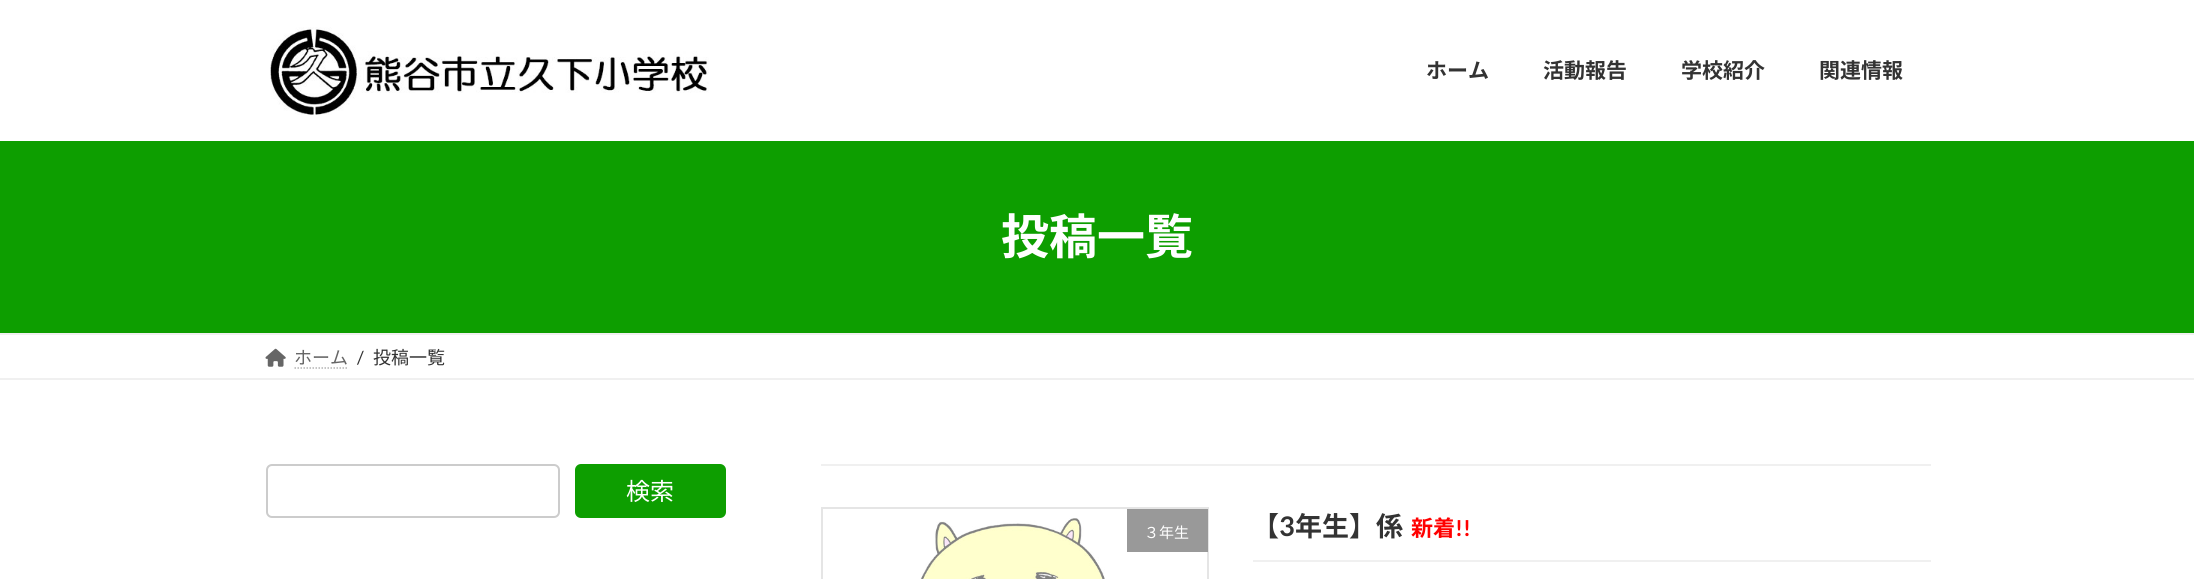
#include <cairo.h>
#include <math.h>
#include <stddef.h>


static void round_rect(cairo_t *cr, double x, double y, double w, double h, double r) {
    cairo_new_sub_path(cr);
    cairo_arc(cr, x + w - r, y + h - r, r, 0, M_PI / 2);
    cairo_arc(cr, x + r, y + h - r, r, M_PI / 2, M_PI);
    cairo_arc(cr, x + r, y + r, r, M_PI, 1.5 * M_PI);
    cairo_arc(cr, x + w - r, y + r, r, 1.5 * M_PI, 2 * M_PI);
    cairo_close_path(cr);
}

static void picture(cairo_t *cr, const char *path, double x, double y, double w, double h) {
    cairo_surface_t *image = cairo_image_surface_create_from_png(path);
    cairo_save(cr);
    cairo_set_source_surface(cr, image, x, y);
    cairo_rectangle(cr, x, y, w, h);
    cairo_fill(cr);
    cairo_restore(cr);
    cairo_surface_destroy(image);
}

int main(void) {
    cairo_surface_t *surface = cairo_image_surface_create(CAIRO_FORMAT_RGB24, 2194, 579);
    cairo_t *cr = cairo_create(surface);
    cairo_font_options_t *options = cairo_font_options_create();
    cairo_font_options_set_hint_metrics(options, CAIRO_HINT_METRICS_OFF);
    cairo_font_options_set_hint_style(options, CAIRO_HINT_STYLE_NONE);
    cairo_set_font_options(cr, options);
    cairo_set_miter_limit(cr, 4);
    cairo_set_source_rgb(cr, 1, 1, 1);
    cairo_paint(cr);
    picture(cr, "img1.png", 270, 27, 439, 88);
    cairo_select_font_face(cr, "Noto Sans JP", CAIRO_FONT_SLANT_NORMAL, CAIRO_FONT_WEIGHT_BOLD);
    cairo_set_font_size(cr, 21);
    cairo_set_source_rgb(cr, 0.2, 0.2, 0.2);
    cairo_move_to(cr, 1426, 78);
    cairo_show_text(cr, "ホーム");
    cairo_move_to(cr, 1543, 78);
    cairo_show_text(cr, "活動報告");
    cairo_move_to(cr, 1681, 78);
    cairo_show_text(cr, "学校紹介");
    cairo_move_to(cr, 1819, 78);
    cairo_show_text(cr, "関連情報");
    cairo_set_source_rgb(cr, 0.051, 0.62, 0);
    cairo_rectangle(cr, 0, 141, 2194, 192);
    cairo_fill(cr);
    cairo_set_font_size(cr, 48);
    cairo_set_source_rgb(cr, 1, 1, 1);
    cairo_move_to(cr, 1001, 254);
    cairo_show_text(cr, "投稿一覧");
    cairo_set_source_rgb(cr, 0.941, 0.941, 0.941);
    cairo_rectangle(cr, 0, 333, 2194, 2);
    cairo_fill(cr);
    cairo_rectangle(cr, 0, 378, 2194, 2);
    cairo_fill(cr);
    picture(cr, "img2.png", 265, 348, 21, 19);
    cairo_select_font_face(cr, "Noto Sans JP", CAIRO_FONT_SLANT_NORMAL, CAIRO_FONT_WEIGHT_NORMAL);
    cairo_set_font_size(cr, 18);
    cairo_set_source_rgb(cr, 0.4, 0.4, 0.4);
    cairo_move_to(cr, 294, 364);
    cairo_show_text(cr, "ホーム");
    cairo_new_path(cr);
    cairo_move_to(cr, 294.5, 368);
    cairo_line_to(cr, 348.5, 368);
    cairo_set_source_rgb(cr, 0.702, 0.702, 0.702);
    cairo_set_line_width(cr, 1.5);
    cairo_set_dash(cr, (double[]){1.5, 1.5}, 2, 0);
    cairo_stroke(cr);
    cairo_select_font_face(cr, "Lato", CAIRO_FONT_SLANT_NORMAL, CAIRO_FONT_WEIGHT_NORMAL);
    cairo_set_source_rgb(cr, 0.2, 0.2, 0.2);
    cairo_move_to(cr, 357, 364);
    cairo_show_text(cr, "/");
    cairo_select_font_face(cr, "Noto Sans JP", CAIRO_FONT_SLANT_NORMAL, CAIRO_FONT_WEIGHT_NORMAL);
    cairo_move_to(cr, 373, 364);
    cairo_show_text(cr, "投稿一覧");
    round_rect(cr, 267, 465, 292, 52, 5);
    cairo_set_source_rgb(cr, 0.8, 0.8, 0.8);
    cairo_set_line_width(cr, 2);
    cairo_set_dash(cr, NULL, 0, 0);
    cairo_stroke(cr);
    cairo_set_source_rgb(cr, 0.051, 0.62, 0);
    round_rect(cr, 575, 464, 151, 54, 6);
    cairo_fill(cr);
    cairo_set_font_size(cr, 24);
    cairo_set_source_rgb(cr, 1, 1, 1);
    cairo_move_to(cr, 626, 500);
    cairo_show_text(cr, "検索");
    cairo_set_source_rgb(cr, 0.941, 0.941, 0.941);
    cairo_rectangle(cr, 821, 464, 1110, 2);
    cairo_fill(cr);
    picture(cr, "img3.png", 920, 518, 185, 61);
    cairo_rectangle(cr, 822, 508, 386, 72);
    cairo_set_source_rgb(cr, 0.898, 0.898, 0.898);
    cairo_stroke(cr);
    cairo_set_source_rgb(cr, 0.6, 0.6, 0.6);
    cairo_rectangle(cr, 1127, 509, 81, 43);
    cairo_fill(cr);
    cairo_set_font_size(cr, 15);
    cairo_set_source_rgb(cr, 1, 1, 1);
    cairo_move_to(cr, 1144, 538);
    cairo_show_text(cr, "３年生");
    cairo_set_source_rgb(cr, 0.941, 0.941, 0.941);
    cairo_rectangle(cr, 1253, 560, 678, 2);
    cairo_fill(cr);
    cairo_select_font_face(cr, "Noto Sans JP", CAIRO_FONT_SLANT_NORMAL, CAIRO_FONT_WEIGHT_BOLD);
    cairo_set_font_size(cr, 27);
    cairo_set_source_rgb(cr, 0.2, 0.2, 0.2);
    cairo_move_to(cr, 1252, 536);
    cairo_show_text(cr, "【");
    cairo_select_font_face(cr, "Lato", CAIRO_FONT_SLANT_NORMAL, CAIRO_FONT_WEIGHT_BOLD);
    cairo_move_to(cr, 1279, 536);
    cairo_show_text(cr, "3");
    cairo_select_font_face(cr, "Noto Sans JP", CAIRO_FONT_SLANT_NORMAL, CAIRO_FONT_WEIGHT_BOLD);
    cairo_move_to(cr, 1295, 536);
    cairo_show_text(cr, "年生】係");
    cairo_set_font_size(cr, 22);
    cairo_set_source_rgb(cr, 1, 0, 0);
    cairo_move_to(cr, 1411, 536);
    cairo_show_text(cr, "新着");
    cairo_select_font_face(cr, "Lato", CAIRO_FONT_SLANT_NORMAL, CAIRO_FONT_WEIGHT_BOLD);
    cairo_move_to(cr, 1455, 536);
    cairo_show_text(cr, "!!");
    cairo_surface_write_to_png(surface, "page.png");
    cairo_font_options_destroy(options);
    cairo_destroy(cr);
    cairo_surface_destroy(surface);
    return 0;
}
